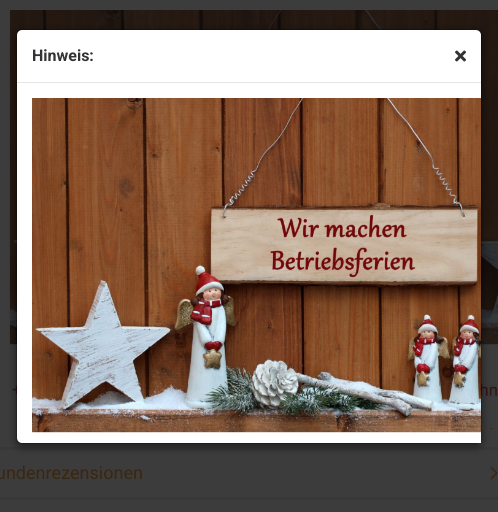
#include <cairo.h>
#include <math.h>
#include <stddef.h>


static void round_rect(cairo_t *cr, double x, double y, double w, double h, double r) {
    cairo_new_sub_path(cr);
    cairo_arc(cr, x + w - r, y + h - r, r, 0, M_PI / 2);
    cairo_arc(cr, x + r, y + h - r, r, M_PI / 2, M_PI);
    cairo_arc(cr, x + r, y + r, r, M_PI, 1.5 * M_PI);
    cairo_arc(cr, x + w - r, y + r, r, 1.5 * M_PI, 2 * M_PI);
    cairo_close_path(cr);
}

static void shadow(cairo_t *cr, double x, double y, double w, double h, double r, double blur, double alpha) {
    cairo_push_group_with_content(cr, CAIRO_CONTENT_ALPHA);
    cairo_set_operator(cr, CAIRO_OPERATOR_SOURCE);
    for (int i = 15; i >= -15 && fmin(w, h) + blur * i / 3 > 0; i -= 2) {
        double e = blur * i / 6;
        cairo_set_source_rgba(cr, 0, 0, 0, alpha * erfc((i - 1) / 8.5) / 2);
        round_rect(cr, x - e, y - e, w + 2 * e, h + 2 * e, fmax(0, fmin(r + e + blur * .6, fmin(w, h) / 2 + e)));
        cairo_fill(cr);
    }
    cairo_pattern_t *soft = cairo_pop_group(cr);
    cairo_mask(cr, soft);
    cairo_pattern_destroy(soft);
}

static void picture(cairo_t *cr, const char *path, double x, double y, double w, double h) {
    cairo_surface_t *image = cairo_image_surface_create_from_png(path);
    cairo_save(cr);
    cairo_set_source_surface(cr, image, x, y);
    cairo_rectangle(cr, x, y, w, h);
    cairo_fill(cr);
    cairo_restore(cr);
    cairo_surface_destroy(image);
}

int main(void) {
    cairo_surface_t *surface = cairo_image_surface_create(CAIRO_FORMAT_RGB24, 498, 512);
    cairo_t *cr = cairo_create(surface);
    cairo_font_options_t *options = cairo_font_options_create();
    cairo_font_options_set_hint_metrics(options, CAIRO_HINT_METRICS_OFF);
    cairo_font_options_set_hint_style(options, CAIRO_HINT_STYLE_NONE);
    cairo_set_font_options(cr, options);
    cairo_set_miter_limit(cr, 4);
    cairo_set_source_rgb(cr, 0.235, 0.235, 0.235);
    cairo_paint(cr);
    picture(cr, "img3.png", 10, 10, 488, 389);
    cairo_set_source_rgb(cr, 0.22, 0.22, 0.22);
    cairo_rectangle(cr, 0, 447, 498, 3);
    cairo_fill(cr);
    picture(cr, "img4.png", 490, 428, 3, 2);
    cairo_set_source_rgb(cr, 0, 0, 0);
    shadow(cr, 16, 32, 466, 415, 6, 4.5, 0.5);
    cairo_set_source_rgb(cr, 1, 1, 1);
    round_rect(cr, 17, 30, 464, 413, 5);
    cairo_fill(cr);
    round_rect(cr, 16.5, 29.5, 465, 414, 5.5);
    cairo_set_source_rgba(cr, 0, 0, 0, 0.2);
    cairo_set_line_width(cr, 1);
    cairo_stroke(cr);
    cairo_set_source_rgb(cr, 0.898, 0.898, 0.898);
    cairo_rectangle(cr, 17, 82, 464, 1);
    cairo_fill(cr);
    cairo_select_font_face(cr, "Roboto", CAIRO_FONT_SLANT_NORMAL, CAIRO_FONT_WEIGHT_BOLD);
    cairo_set_font_size(cr, 16);
    cairo_set_source_rgb(cr, 0.2, 0.2, 0.2);
    cairo_move_to(cr, 32, 61);
    cairo_show_text(cr, "Hinweis:");
    picture(cr, "img1.png", 455, 50, 11, 12);
    picture(cr, "img2.png", 32, 98, 449, 345);
    cairo_set_source_rgb(cr, 0.22, 0.22, 0.22);
    cairo_rectangle(cr, 0, 497, 498, 3);
    cairo_fill(cr);
    cairo_select_font_face(cr, "Roboto", CAIRO_FONT_SLANT_NORMAL, CAIRO_FONT_WEIGHT_NORMAL);
    cairo_set_font_size(cr, 18);
    cairo_set_source_rgb(cr, 0.227, 0.149, 0.067);
    cairo_move_to(cr, -4, 479);
    cairo_show_text(cr, "undenrezensionen");
    picture(cr, "img5.png", 490, 466, 8, 14);
    cairo_surface_write_to_png(surface, "page.png");
    cairo_font_options_destroy(options);
    cairo_destroy(cr);
    cairo_surface_destroy(surface);
    return 0;
}
